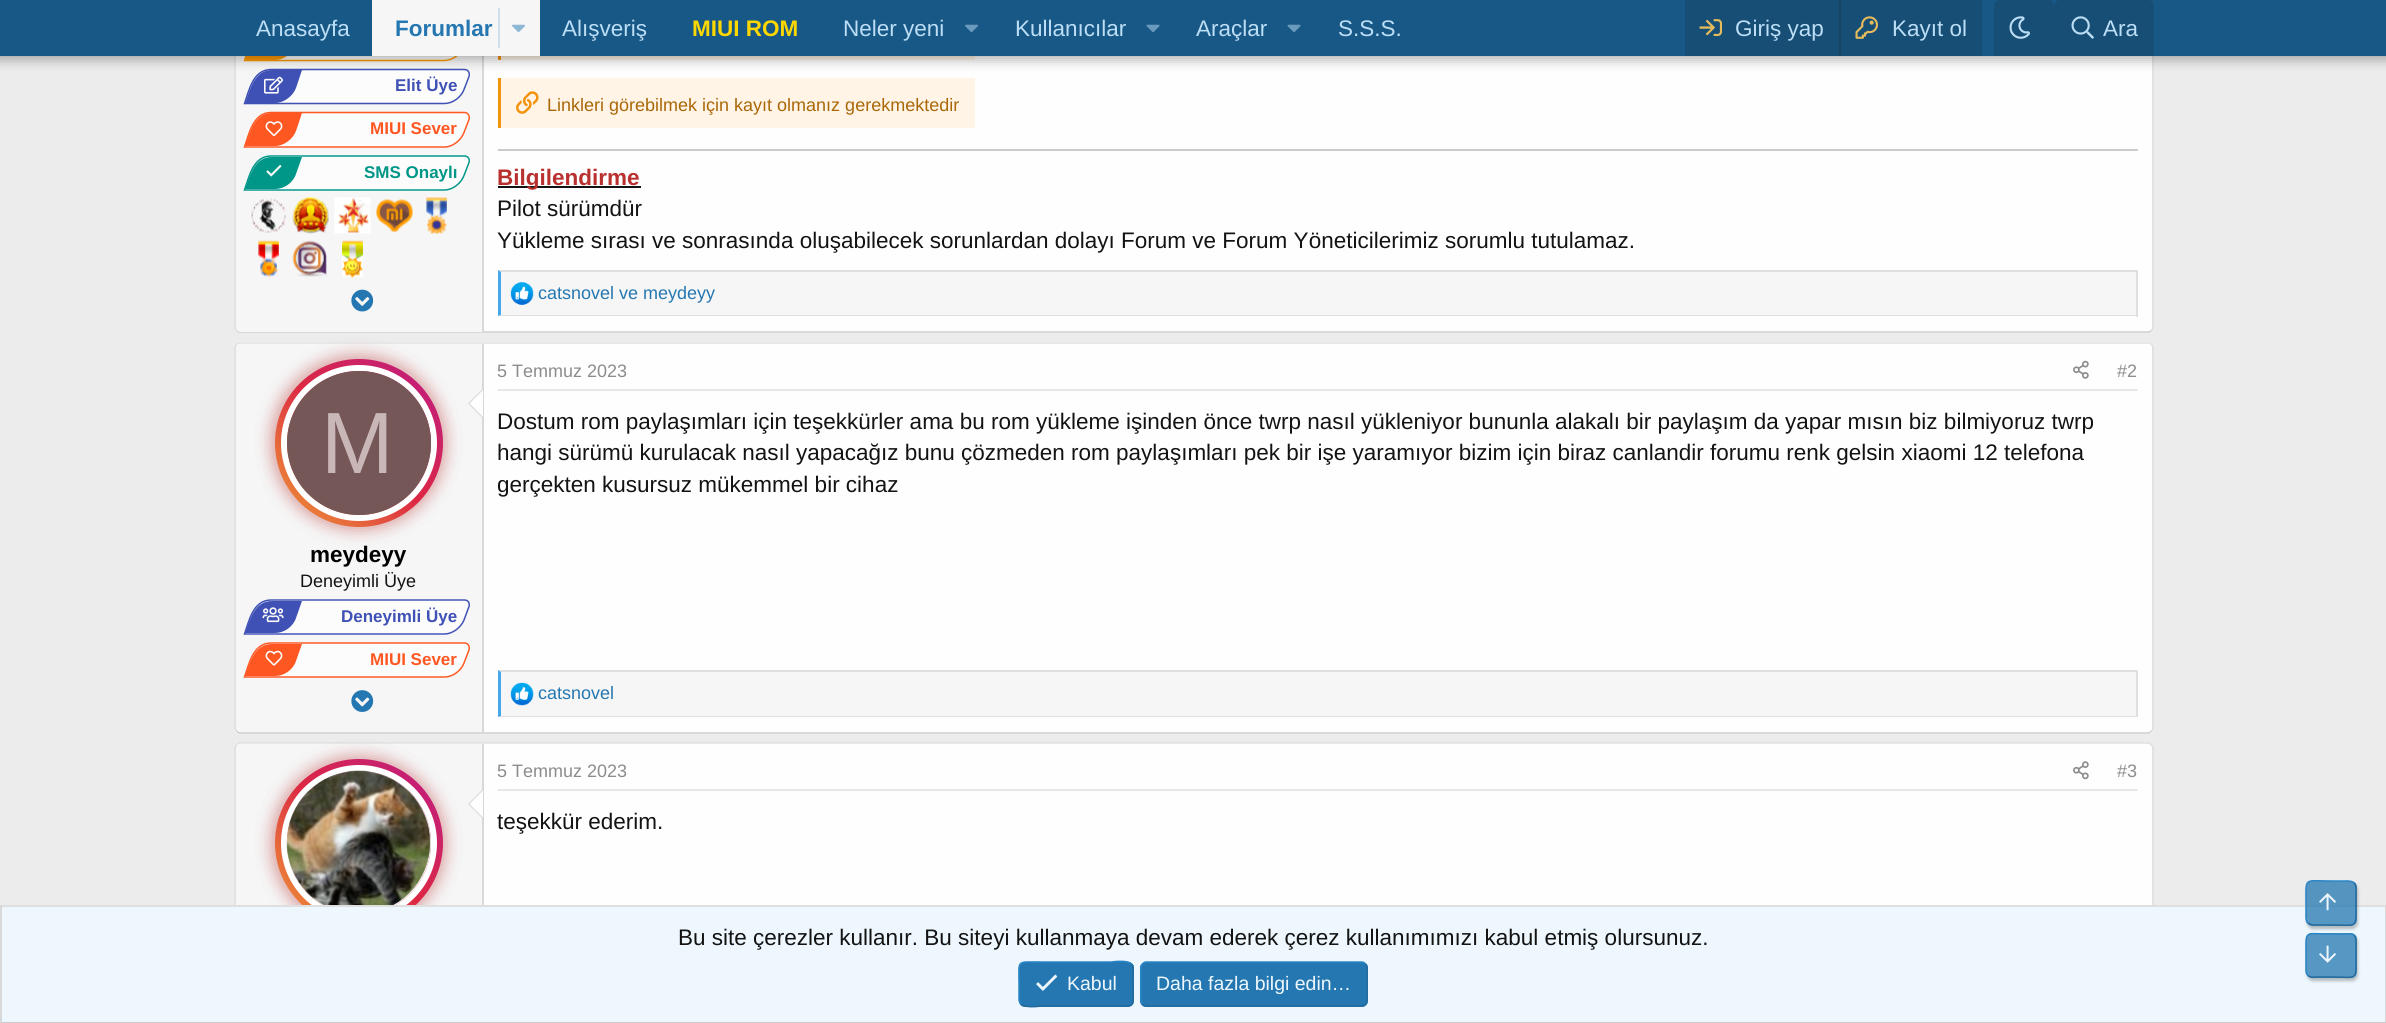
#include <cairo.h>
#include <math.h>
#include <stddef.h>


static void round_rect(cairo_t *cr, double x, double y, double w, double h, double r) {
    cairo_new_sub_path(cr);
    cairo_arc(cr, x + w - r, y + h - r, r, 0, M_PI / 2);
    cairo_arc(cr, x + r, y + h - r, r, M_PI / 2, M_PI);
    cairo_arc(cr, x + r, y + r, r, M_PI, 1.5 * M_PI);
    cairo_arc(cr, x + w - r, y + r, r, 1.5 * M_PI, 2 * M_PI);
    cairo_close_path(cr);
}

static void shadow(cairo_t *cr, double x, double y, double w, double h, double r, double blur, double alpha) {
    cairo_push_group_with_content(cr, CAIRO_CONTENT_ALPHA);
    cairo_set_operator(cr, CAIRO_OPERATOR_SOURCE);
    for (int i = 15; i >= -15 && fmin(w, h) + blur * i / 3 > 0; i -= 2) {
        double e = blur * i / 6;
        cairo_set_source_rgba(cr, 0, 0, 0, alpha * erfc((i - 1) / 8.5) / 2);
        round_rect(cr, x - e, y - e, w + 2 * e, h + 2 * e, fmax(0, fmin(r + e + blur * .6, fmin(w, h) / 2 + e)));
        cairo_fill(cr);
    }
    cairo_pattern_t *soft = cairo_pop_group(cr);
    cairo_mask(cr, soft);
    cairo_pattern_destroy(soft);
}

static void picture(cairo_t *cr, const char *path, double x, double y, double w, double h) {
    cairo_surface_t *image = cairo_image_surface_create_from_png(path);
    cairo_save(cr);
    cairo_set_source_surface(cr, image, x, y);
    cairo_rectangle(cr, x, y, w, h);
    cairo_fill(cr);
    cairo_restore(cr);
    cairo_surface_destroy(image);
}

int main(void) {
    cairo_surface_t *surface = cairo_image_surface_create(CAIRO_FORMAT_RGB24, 2386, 1023);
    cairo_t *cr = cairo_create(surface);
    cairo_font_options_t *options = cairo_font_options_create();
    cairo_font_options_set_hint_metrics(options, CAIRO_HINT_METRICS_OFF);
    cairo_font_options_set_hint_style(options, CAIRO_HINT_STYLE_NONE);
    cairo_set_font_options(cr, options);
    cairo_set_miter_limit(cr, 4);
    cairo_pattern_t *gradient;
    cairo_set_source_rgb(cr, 0.925, 0.925, 0.925);
    cairo_paint(cr);
    cairo_set_source_rgb(cr, 0.996, 0.996, 0.996);
    round_rect(cr, 234, -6, 1920, 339, 6);
    cairo_fill(cr);
    cairo_new_path(cr);
    cairo_move_to(cr, 2151.5, -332);
    cairo_curve_to(cr, 2152.5, -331, 2153, -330, 2153, -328.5);
    cairo_line_to(cr, 2153, 327);
    cairo_curve_to(cr, 2153, 328.5, 2152.5, 329.5, 2151.5, 330.5);
    cairo_set_source_rgb(cr, 0.847, 0.847, 0.847);
    cairo_set_line_width(cr, 1.5);
    cairo_stroke(cr);
    cairo_new_path(cr);
    cairo_move_to(cr, 2151.5, 330.5);
    cairo_curve_to(cr, 2150.5, 331.5, 2149.5, 332, 2148, 332);
    cairo_line_to(cr, 240, 332);
    cairo_curve_to(cr, 238.5, 332, 237.5, 331.5, 236.5, 330.5);
    cairo_set_source_rgb(cr, 0.796, 0.796, 0.796);
    cairo_stroke(cr);
    cairo_new_path(cr);
    cairo_move_to(cr, 236.5, 330.5);
    cairo_curve_to(cr, 235.5, 329.5, 235, 328.5, 235, 327);
    cairo_line_to(cr, 235, -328.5);
    cairo_curve_to(cr, 235, -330, 235.5, -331, 236.5, -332);
    cairo_set_source_rgb(cr, 0.847, 0.847, 0.847);
    cairo_stroke(cr);
    cairo_set_source_rgb(cr, 0.961, 0.961, 0.961);
    cairo_new_path(cr);
    cairo_move_to(cr, 241, -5);
    cairo_line_to(cr, 483, -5);
    cairo_line_to(cr, 483, 332);
    cairo_line_to(cr, 241, 332);
    cairo_curve_to(cr, 238, 332, 236, 330, 236, 327);
    cairo_line_to(cr, 236, 0);
    cairo_curve_to(cr, 236, -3, 238, -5, 241, -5);
    cairo_close_path(cr);
    cairo_fill(cr);
    cairo_set_source_rgb(cr, 0.847, 0.847, 0.847);
    cairo_rectangle(cr, 482, 56, 2, 276);
    cairo_fill(cr);
    cairo_set_source_rgb(cr, 0.988, 0.988, 0.988);
    cairo_new_path(cr);
    cairo_move_to(cr, 271, 26);
    cairo_line_to(cr, 465, 26);
    cairo_curve_to(cr, 469, 26, 471, 29, 470, 33);
    cairo_line_to(cr, 465, 46);
    cairo_curve_to(cr, 462, 55, 453, 61, 444, 61);
    cairo_line_to(cr, 243, 61);
    cairo_curve_to(cr, 248, 48, 253, 26, 271, 26);
    cairo_close_path(cr);
    cairo_fill(cr);
    cairo_new_path(cr);
    cairo_move_to(cr, 271, 26.5);
    cairo_line_to(cr, 464.5, 26.5);
    cairo_curve_to(cr, 468, 26.5, 470, 29.5, 469, 33);
    cairo_line_to(cr, 464, 46.5);
    cairo_curve_to(cr, 461, 54, 452.5, 60.5, 444.5, 60.5);
    cairo_line_to(cr, 244.5, 60.5);
    cairo_curve_to(cr, 249, 47.5, 253, 26.5, 271, 26.5);
    cairo_close_path(cr);
    cairo_set_source_rgb(cr, 1, 0.596, 0);
    cairo_stroke(cr);
    cairo_new_path(cr);
    cairo_move_to(cr, 272, 27);
    cairo_line_to(cr, 302, 27);
    cairo_line_to(cr, 296, 45);
    cairo_curve_to(cr, 293, 53, 284, 60, 275, 60);
    cairo_line_to(cr, 245, 60);
    cairo_curve_to(cr, 250, 47, 254, 27, 272, 27);
    cairo_close_path(cr);
    cairo_fill(cr);
    cairo_set_source_rgb(cr, 0.988, 0.988, 0.988);
    cairo_new_path(cr);
    cairo_move_to(cr, 271, 69);
    cairo_line_to(cr, 465, 69);
    cairo_curve_to(cr, 469, 69, 471, 72, 470, 76);
    cairo_line_to(cr, 465, 89);
    cairo_curve_to(cr, 462, 98, 453, 104, 444, 104);
    cairo_line_to(cr, 243, 104);
    cairo_curve_to(cr, 248, 91, 253, 69, 271, 69);
    cairo_close_path(cr);
    cairo_fill(cr);
    cairo_new_path(cr);
    cairo_move_to(cr, 271, 69.5);
    cairo_line_to(cr, 464.5, 69.5);
    cairo_curve_to(cr, 468, 69.5, 470, 72.5, 469, 76.5);
    cairo_line_to(cr, 464, 89.5);
    cairo_curve_to(cr, 461, 97.5, 452.5, 103.5, 444.5, 103.5);
    cairo_line_to(cr, 244.5, 103.5);
    cairo_curve_to(cr, 249, 90.5, 253, 69.5, 271, 69.5);
    cairo_close_path(cr);
    cairo_set_source_rgb(cr, 0.247, 0.318, 0.71);
    cairo_stroke(cr);
    cairo_new_path(cr);
    cairo_move_to(cr, 272, 70);
    cairo_line_to(cr, 302, 70);
    cairo_line_to(cr, 296, 88);
    cairo_curve_to(cr, 293, 96, 284, 103, 275, 103);
    cairo_line_to(cr, 245, 103);
    cairo_curve_to(cr, 250, 90, 254, 70, 272, 70);
    cairo_close_path(cr);
    cairo_fill(cr);
    picture(cr, "img8.png", 264, 76, 19, 18);
    cairo_set_source_rgb(cr, 1, 0.957, 0.898);
    cairo_rectangle(cr, 501, 56, 474, 4);
    cairo_fill(cr);
    cairo_set_source_rgb(cr, 0.949, 0.576, 0.051);
    cairo_rectangle(cr, 498, 56, 3, 4);
    cairo_fill(cr);
    cairo_set_source_rgb(cr, 1, 0.957, 0.898);
    cairo_rectangle(cr, 501, 78, 474, 50);
    cairo_fill(cr);
    cairo_set_source_rgb(cr, 0.949, 0.576, 0.051);
    cairo_rectangle(cr, 498, 78, 3, 50);
    cairo_fill(cr);
    cairo_set_source_rgb(cr, 0, 0, 0);
    shadow(cr, -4, -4, 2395, 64, 0, 6, 0.3);
    cairo_set_source_rgb(cr, 0.094, 0.345, 0.525);
    cairo_rectangle(cr, 0, 0, 2386, 56);
    cairo_fill(cr);
    cairo_select_font_face(cr, "Liberation Sans", CAIRO_FONT_SLANT_NORMAL, CAIRO_FONT_WEIGHT_NORMAL);
    cairo_set_font_size(cr, 22.5);
    cairo_set_source_rgb(cr, 0.737, 0.871, 0.961);
    cairo_move_to(cr, 256, 36);
    cairo_show_text(cr, "Anasayfa");
    cairo_set_source_rgb(cr, 0.961, 0.961, 0.961);
    cairo_rectangle(cr, 372, 0, 168, 56);
    cairo_fill(cr);
    cairo_select_font_face(cr, "Liberation Sans", CAIRO_FONT_SLANT_NORMAL, CAIRO_FONT_WEIGHT_BOLD);
    cairo_set_source_rgb(cr, 0.145, 0.467, 0.694);
    cairo_move_to(cr, 395, 36);
    cairo_show_text(cr, "Forumlar");
    cairo_set_source_rgb(cr, 0.82, 0.875, 0.914);
    cairo_rectangle(cr, 498, 8, 2, 40);
    cairo_fill(cr);
    picture(cr, "img1.png", 512, 24, 13, 9);
    cairo_select_font_face(cr, "Liberation Sans", CAIRO_FONT_SLANT_NORMAL, CAIRO_FONT_WEIGHT_NORMAL);
    cairo_set_source_rgb(cr, 0.737, 0.871, 0.961);
    cairo_move_to(cr, 562, 36);
    cairo_show_text(cr, "Alışveriş");
    cairo_select_font_face(cr, "Liberation Sans", CAIRO_FONT_SLANT_NORMAL, CAIRO_FONT_WEIGHT_BOLD);
    cairo_set_source_rgb(cr, 0.992, 0.843, 0);
    cairo_move_to(cr, 692, 36);
    cairo_show_text(cr, "MIUI ROM");
    cairo_select_font_face(cr, "Liberation Sans", CAIRO_FONT_SLANT_NORMAL, CAIRO_FONT_WEIGHT_NORMAL);
    cairo_set_source_rgb(cr, 0.737, 0.871, 0.961);
    cairo_move_to(cr, 843, 36);
    cairo_show_text(cr, "Neler yeni");
    picture(cr, "img2.png", 965, 24, 13, 9);
    cairo_move_to(cr, 1015, 36);
    cairo_show_text(cr, "Kullanıcılar");
    picture(cr, "img3.png", 1146, 24, 14, 8);
    cairo_move_to(cr, 1196, 36);
    cairo_show_text(cr, "Araçlar");
    picture(cr, "img3.png", 1287, 24, 14, 8);
    cairo_move_to(cr, 1338, 36);
    cairo_show_text(cr, "S.S.S.");
    cairo_set_source_rgb(cr, 0.09, 0.306, 0.459);
    cairo_rectangle(cr, 1685, 0, 297, 56);
    cairo_fill(cr);
    picture(cr, "img4.png", 1699, 19, 23, 17);
    cairo_set_source_rgb(cr, 0.737, 0.871, 0.961);
    cairo_move_to(cr, 1735, 36);
    cairo_show_text(cr, "Giriş yap");
    cairo_set_source_rgb(cr, 0.09, 0.271, 0.4);
    cairo_rectangle(cr, 1839, 0, 2, 56);
    cairo_fill(cr);
    picture(cr, "img5.png", 1855, 16, 23, 23);
    cairo_set_source_rgb(cr, 0.737, 0.871, 0.961);
    cairo_move_to(cr, 1892, 36);
    cairo_show_text(cr, "Kayıt ol");
    cairo_set_source_rgb(cr, 0.09, 0.306, 0.459);
    cairo_new_path(cr);
    cairo_move_to(cr, 2000, 0);
    cairo_line_to(cr, 2048, 0);
    cairo_curve_to(cr, 2051.5, 0, 2054, 2.5, 2054, 6);
    cairo_line_to(cr, 2054, 56);
    cairo_line_to(cr, 1994, 56);
    cairo_line_to(cr, 1994, 6);
    cairo_curve_to(cr, 1994, 2.5, 1996.5, 0, 2000, 0);
    cairo_close_path(cr);
    cairo_fill(cr);
    picture(cr, "img6.png", 2009, 16, 21, 23);
    cairo_new_path(cr);
    cairo_move_to(cr, 2060, 0);
    cairo_line_to(cr, 2148, 0);
    cairo_curve_to(cr, 2151.5, 0, 2154, 2.5, 2154, 6);
    cairo_line_to(cr, 2154, 56);
    cairo_line_to(cr, 2054, 56);
    cairo_line_to(cr, 2054, 6);
    cairo_curve_to(cr, 2054, 2.5, 2056.5, 0, 2060, 0);
    cairo_close_path(cr);
    cairo_fill(cr);
    picture(cr, "img7.png", 2071, 16, 23, 23);
    cairo_set_source_rgb(cr, 0.737, 0.871, 0.961);
    cairo_move_to(cr, 2103, 36);
    cairo_show_text(cr, "Ara");
    cairo_select_font_face(cr, "Liberation Sans", CAIRO_FONT_SLANT_NORMAL, CAIRO_FONT_WEIGHT_BOLD);
    cairo_set_font_size(cr, 17);
    cairo_set_source_rgb(cr, 0.247, 0.318, 0.71);
    cairo_move_to(cr, 395, 91);
    cairo_show_text(cr, "Elit Üye");
    cairo_set_source_rgb(cr, 0.988, 0.988, 0.988);
    cairo_new_path(cr);
    cairo_move_to(cr, 271, 112);
    cairo_line_to(cr, 465, 112);
    cairo_curve_to(cr, 469, 112, 471, 115, 470, 119);
    cairo_line_to(cr, 465, 133);
    cairo_curve_to(cr, 462, 141, 453, 148, 444, 148);
    cairo_line_to(cr, 243, 148);
    cairo_curve_to(cr, 248, 134, 253, 112, 271, 112);
    cairo_close_path(cr);
    cairo_fill(cr);
    cairo_new_path(cr);
    cairo_move_to(cr, 271, 112.5);
    cairo_line_to(cr, 464.5, 112.5);
    cairo_curve_to(cr, 468, 112.5, 470, 116, 469, 119.5);
    cairo_line_to(cr, 464, 132.5);
    cairo_curve_to(cr, 461, 140.5, 452.5, 147, 444.5, 147);
    cairo_line_to(cr, 244.5, 147);
    cairo_curve_to(cr, 249, 134, 253, 112.5, 271, 112.5);
    cairo_close_path(cr);
    cairo_set_source_rgb(cr, 1, 0.341, 0.133);
    cairo_stroke(cr);
    cairo_new_path(cr);
    cairo_move_to(cr, 272, 113);
    cairo_line_to(cr, 302, 113);
    cairo_line_to(cr, 296, 131);
    cairo_curve_to(cr, 293, 139, 284, 146, 275, 146);
    cairo_line_to(cr, 245, 146);
    cairo_curve_to(cr, 250, 133, 254, 113, 272, 113);
    cairo_close_path(cr);
    cairo_fill(cr);
    picture(cr, "img9.png", 265, 121, 18, 15);
    cairo_move_to(cr, 370, 134);
    cairo_show_text(cr, "MIUI Sever");
    cairo_set_source_rgb(cr, 0.988, 0.988, 0.988);
    cairo_new_path(cr);
    cairo_move_to(cr, 271, 155);
    cairo_line_to(cr, 465, 155);
    cairo_curve_to(cr, 469, 155, 471, 158, 470, 163);
    cairo_line_to(cr, 465, 176);
    cairo_curve_to(cr, 462, 184, 453, 191, 444, 191);
    cairo_line_to(cr, 243, 191);
    cairo_curve_to(cr, 248, 177, 253, 155, 271, 155);
    cairo_close_path(cr);
    cairo_fill(cr);
    cairo_new_path(cr);
    cairo_move_to(cr, 271, 156);
    cairo_line_to(cr, 464.5, 156);
    cairo_curve_to(cr, 468, 156, 470, 159, 469, 162.5);
    cairo_line_to(cr, 464, 175.5);
    cairo_curve_to(cr, 461, 183.5, 452.5, 190, 444.5, 190);
    cairo_line_to(cr, 244.5, 190);
    cairo_curve_to(cr, 249, 177, 253, 156, 271, 156);
    cairo_close_path(cr);
    cairo_set_source_rgb(cr, 0, 0.588, 0.533);
    cairo_stroke(cr);
    cairo_new_path(cr);
    cairo_move_to(cr, 272, 157);
    cairo_line_to(cr, 302, 157);
    cairo_line_to(cr, 296, 174);
    cairo_curve_to(cr, 293, 183, 284, 189, 275, 189);
    cairo_line_to(cr, 245, 189);
    cairo_curve_to(cr, 250, 176, 254, 157, 272, 157);
    cairo_close_path(cr);
    cairo_fill(cr);
    picture(cr, "img10.png", 266, 164, 16, 13);
    cairo_move_to(cr, 364, 178);
    cairo_show_text(cr, "SMS Onaylı");
    picture(cr, "img11.png", 251, 198, 36, 35);
    picture(cr, "img12.png", 292, 197, 37, 37);
    picture(cr, "img13.png", 334, 197, 37, 37);
    picture(cr, "img14.png", 376, 199, 37, 34);
    picture(cr, "img15.png", 426, 197, 21, 37);
    picture(cr, "img16.png", 258, 240, 21, 38);
    picture(cr, "img17.png", 292, 240, 35, 37);
    picture(cr, "img18.png", 342, 240, 21, 38);
    picture(cr, "img19.png", 351, 289, 23, 23);
    picture(cr, "img20.png", 516, 91, 23, 23);
    cairo_select_font_face(cr, "Liberation Sans", CAIRO_FONT_SLANT_NORMAL, CAIRO_FONT_WEIGHT_NORMAL);
    cairo_set_font_size(cr, 18);
    cairo_set_source_rgb(cr, 0.667, 0.404, 0.035);
    cairo_move_to(cr, 547, 111);
    cairo_show_text(cr, "Linkleri görebilmek için kayıt olmanız gerekmektedir");
    cairo_set_source_rgb(cr, 0.796, 0.796, 0.796);
    cairo_rectangle(cr, 498, 149, 1640, 2);
    cairo_fill(cr);
    cairo_set_source_rgb(cr, 0.078, 0.078, 0.078);
    cairo_rectangle(cr, 498, 186, 143, 2);
    cairo_fill(cr);
    cairo_select_font_face(cr, "Liberation Sans", CAIRO_FONT_SLANT_NORMAL, CAIRO_FONT_WEIGHT_BOLD);
    cairo_set_font_size(cr, 22.5);
    cairo_set_source_rgb(cr, 0.722, 0.192, 0.184);
    cairo_move_to(cr, 497, 185);
    cairo_show_text(cr, "Bilgilendirme");
    cairo_select_font_face(cr, "Liberation Sans", CAIRO_FONT_SLANT_NORMAL, CAIRO_FONT_WEIGHT_NORMAL);
    cairo_set_source_rgb(cr, 0.078, 0.078, 0.078);
    cairo_move_to(cr, 497, 216);
    cairo_show_text(cr, "Pilot sürümdür");
    cairo_move_to(cr, 497, 248);
    cairo_show_text(cr, "Yükleme sırası ve sonrasında oluşabilecek sorunlardan dolayı Forum ve Forum Yöneticilerimiz sorumlu tutulamaz.");
    cairo_set_source_rgb(cr, 0.961, 0.961, 0.961);
    cairo_rectangle(cr, 501, 272, 1635, 43);
    cairo_fill(cr);
    cairo_set_source_rgb(cr, 0.875, 0.875, 0.875);
    cairo_new_path(cr);
    cairo_move_to(cr, 498, 270);
    cairo_line_to(cr, 2138, 270);
    cairo_line_to(cr, 2136, 272);
    cairo_line_to(cr, 501, 272);
    cairo_close_path(cr);
    cairo_fill(cr);
    cairo_rectangle(cr, 2136, 270, 2, 47);
    cairo_fill(cr);
    cairo_new_path(cr);
    cairo_move_to(cr, 2138, 316);
    cairo_line_to(cr, 498, 316);
    cairo_line_to(cr, 501, 315);
    cairo_line_to(cr, 2136, 315);
    cairo_close_path(cr);
    cairo_fill(cr);
    cairo_set_source_rgb(cr, 0.278, 0.655, 0.922);
    cairo_new_path(cr);
    cairo_move_to(cr, 498, 316);
    cairo_line_to(cr, 498, 270);
    cairo_line_to(cr, 501, 272);
    cairo_line_to(cr, 501, 315);
    cairo_close_path(cr);
    cairo_fill(cr);
    picture(cr, "img21.png", 510, 282, 24, 23);
    cairo_set_font_size(cr, 18);
    cairo_set_source_rgb(cr, 0.145, 0.467, 0.694);
    cairo_move_to(cr, 538, 299);
    cairo_show_text(cr, "catsnovel ve meydeyy");
    cairo_set_source_rgb(cr, 0.996, 0.996, 0.996);
    round_rect(cr, 234, 342, 1920, 392, 6);
    cairo_fill(cr);
    cairo_new_path(cr);
    cairo_move_to(cr, 236.5, 344.5);
    cairo_curve_to(cr, 237.5, 343.5, 238.5, 343, 240, 343);
    cairo_line_to(cr, 2148, 343);
    cairo_curve_to(cr, 2149.5, 343, 2150.5, 343.5, 2151.5, 344.5);
    cairo_set_source_rgb(cr, 0.875, 0.875, 0.875);
    cairo_stroke(cr);
    cairo_new_path(cr);
    cairo_move_to(cr, 2151.5, 344.5);
    cairo_curve_to(cr, 2152.5, 345.5, 2153, 346.5, 2153, 348);
    cairo_line_to(cr, 2153, 727.5);
    cairo_curve_to(cr, 2153, 729, 2152.5, 730, 2151.5, 731);
    cairo_set_source_rgb(cr, 0.847, 0.847, 0.847);
    cairo_stroke(cr);
    cairo_new_path(cr);
    cairo_move_to(cr, 2151.5, 731);
    cairo_curve_to(cr, 2150.5, 732, 2149.5, 733, 2148, 733);
    cairo_line_to(cr, 240, 733);
    cairo_curve_to(cr, 238.5, 733, 237.5, 732, 236.5, 731);
    cairo_set_source_rgb(cr, 0.796, 0.796, 0.796);
    cairo_stroke(cr);
    cairo_new_path(cr);
    cairo_move_to(cr, 236.5, 731);
    cairo_curve_to(cr, 235.5, 730, 235, 729, 235, 727.5);
    cairo_line_to(cr, 235, 348);
    cairo_curve_to(cr, 235, 346.5, 235.5, 345.5, 236.5, 344.5);
    cairo_set_source_rgb(cr, 0.847, 0.847, 0.847);
    cairo_stroke(cr);
    cairo_set_source_rgb(cr, 0.961, 0.961, 0.961);
    cairo_new_path(cr);
    cairo_move_to(cr, 241, 344);
    cairo_line_to(cr, 483, 344);
    cairo_line_to(cr, 483, 732);
    cairo_line_to(cr, 241, 732);
    cairo_curve_to(cr, 238, 732, 236, 730, 236, 727);
    cairo_line_to(cr, 236, 349);
    cairo_curve_to(cr, 236, 346, 238, 344, 241, 344);
    cairo_close_path(cr);
    cairo_fill(cr);
    cairo_set_source_rgb(cr, 0.847, 0.847, 0.847);
    cairo_rectangle(cr, 482, 344, 2, 388);
    cairo_fill(cr);
    cairo_set_source_rgb(cr, 0.698, 0.133, 0.133);
    shadow(cr, 270, 354, 177, 177, 88.5, 7.5, 0.38);
    cairo_set_source_rgb(cr, 0.847, 0.847, 0.847);
    cairo_new_path(cr);
    cairo_move_to(cr, 483, 388.5);
    cairo_line_to(cr, 483, 418.5);
    cairo_line_to(cr, 468, 403.5);
    cairo_close_path(cr);
    cairo_fill(cr);
    cairo_set_source_rgb(cr, 0.996, 0.996, 0.996);
    cairo_new_path(cr);
    cairo_move_to(cr, 483, 390);
    cairo_line_to(cr, 483, 417);
    cairo_line_to(cr, 469.5, 403.5);
    cairo_close_path(cr);
    cairo_fill(cr);
    gradient = cairo_pattern_create_linear(275, 527, 443, 359);
    cairo_pattern_add_color_stop_rgba(gradient, 0, 0.941, 0.58, 0.2, 1);
    cairo_pattern_add_color_stop_rgba(gradient, 0.25, 0.902, 0.408, 0.235, 1);
    cairo_pattern_add_color_stop_rgba(gradient, 0.5, 0.863, 0.153, 0.263, 1);
    cairo_pattern_add_color_stop_rgba(gradient, 0.75, 0.8, 0.137, 0.4, 1);
    cairo_pattern_add_color_stop_rgba(gradient, 1, 0.737, 0.094, 0.533, 1);
    cairo_set_source(cr, gradient);
    cairo_pattern_destroy(gradient);
    cairo_arc(cr, 359, 443, 84, 0, 2 * M_PI);
    cairo_fill(cr);
    cairo_arc(cr, 359, 443, 75, 0, 2 * M_PI);
    cairo_set_source_rgb(cr, 1, 1, 1);
    cairo_set_line_width(cr, 6);
    cairo_stroke(cr);
    cairo_set_source_rgb(cr, 0.459, 0.341, 0.341);
    cairo_arc(cr, 359, 443, 72, 0, 2 * M_PI);
    cairo_fill(cr);
    cairo_set_font_size(cr, 87);
    cairo_set_source_rgb(cr, 0.788, 0.714, 0.714);
    cairo_move_to(cr, 321, 473);
    cairo_show_text(cr, "M");
    cairo_select_font_face(cr, "Liberation Sans", CAIRO_FONT_SLANT_NORMAL, CAIRO_FONT_WEIGHT_BOLD);
    cairo_set_font_size(cr, 22.5);
    cairo_set_source_rgb(cr, 0, 0, 0);
    cairo_move_to(cr, 310, 562);
    cairo_show_text(cr, "meydeyy");
    cairo_select_font_face(cr, "Liberation Sans", CAIRO_FONT_SLANT_NORMAL, CAIRO_FONT_WEIGHT_NORMAL);
    cairo_set_font_size(cr, 18);
    cairo_set_source_rgb(cr, 0.078, 0.078, 0.078);
    cairo_move_to(cr, 300, 587);
    cairo_show_text(cr, "Deneyimli Üye");
    cairo_set_source_rgb(cr, 0.988, 0.988, 0.988);
    cairo_new_path(cr);
    cairo_move_to(cr, 271, 599);
    cairo_line_to(cr, 465, 599);
    cairo_curve_to(cr, 469, 599, 471, 603, 470, 607);
    cairo_line_to(cr, 465, 620);
    cairo_curve_to(cr, 462, 628, 453, 635, 444, 635);
    cairo_line_to(cr, 243, 635);
    cairo_curve_to(cr, 248, 621, 253, 599, 271, 599);
    cairo_close_path(cr);
    cairo_fill(cr);
    cairo_new_path(cr);
    cairo_move_to(cr, 271, 600);
    cairo_line_to(cr, 464.5, 600);
    cairo_curve_to(cr, 468, 600, 470, 603, 469, 606.5);
    cairo_line_to(cr, 464, 620);
    cairo_curve_to(cr, 461, 627.5, 452.5, 634, 444.5, 634);
    cairo_line_to(cr, 244.5, 634);
    cairo_curve_to(cr, 249, 621, 253, 600, 271, 600);
    cairo_close_path(cr);
    cairo_set_source_rgb(cr, 0.247, 0.318, 0.71);
    cairo_set_line_width(cr, 1.5);
    cairo_stroke(cr);
    cairo_new_path(cr);
    cairo_move_to(cr, 272, 601);
    cairo_line_to(cr, 302, 601);
    cairo_line_to(cr, 296, 618);
    cairo_curve_to(cr, 293, 627, 284, 633, 275, 633);
    cairo_line_to(cr, 245, 633);
    cairo_curve_to(cr, 250, 620, 254, 601, 272, 601);
    cairo_close_path(cr);
    cairo_fill(cr);
    picture(cr, "img22.png", 262, 607, 22, 16);
    cairo_select_font_face(cr, "Liberation Sans", CAIRO_FONT_SLANT_NORMAL, CAIRO_FONT_WEIGHT_BOLD);
    cairo_set_font_size(cr, 17);
    cairo_move_to(cr, 341, 622);
    cairo_show_text(cr, "Deneyimli Üye");
    cairo_set_source_rgb(cr, 0.988, 0.988, 0.988);
    cairo_new_path(cr);
    cairo_move_to(cr, 271, 642);
    cairo_line_to(cr, 465, 642);
    cairo_curve_to(cr, 469, 642, 471, 646, 470, 650);
    cairo_line_to(cr, 465, 663);
    cairo_curve_to(cr, 462, 671, 453, 678, 444, 678);
    cairo_line_to(cr, 243, 678);
    cairo_curve_to(cr, 248, 664, 253, 642, 271, 642);
    cairo_close_path(cr);
    cairo_fill(cr);
    cairo_new_path(cr);
    cairo_move_to(cr, 271, 643);
    cairo_line_to(cr, 464.5, 643);
    cairo_curve_to(cr, 468, 643, 470, 646, 469, 650);
    cairo_line_to(cr, 464, 663);
    cairo_curve_to(cr, 461, 671, 452.5, 677, 444.5, 677);
    cairo_line_to(cr, 244.5, 677);
    cairo_curve_to(cr, 249, 664, 253, 643, 271, 643);
    cairo_close_path(cr);
    cairo_set_source_rgb(cr, 1, 0.341, 0.133);
    cairo_stroke(cr);
    cairo_new_path(cr);
    cairo_move_to(cr, 272, 644);
    cairo_line_to(cr, 302, 644);
    cairo_line_to(cr, 296, 661);
    cairo_curve_to(cr, 293, 670, 284, 676, 275, 676);
    cairo_line_to(cr, 245, 676);
    cairo_curve_to(cr, 250, 663, 254, 644, 272, 644);
    cairo_close_path(cr);
    cairo_fill(cr);
    picture(cr, "img23.png", 265, 650, 18, 16);
    cairo_move_to(cr, 370, 665);
    cairo_show_text(cr, "MIUI Sever");
    picture(cr, "img24.png", 351, 690, 23, 22);
    cairo_set_source_rgb(cr, 0.906, 0.906, 0.906);
    cairo_rectangle(cr, 498, 389, 1640, 2);
    cairo_fill(cr);
    cairo_select_font_face(cr, "Liberation Sans", CAIRO_FONT_SLANT_NORMAL, CAIRO_FONT_WEIGHT_NORMAL);
    cairo_set_font_size(cr, 18);
    cairo_set_source_rgb(cr, 0.549, 0.549, 0.549);
    cairo_move_to(cr, 497, 377);
    cairo_show_text(cr, "5 Temmuz 2023");
    picture(cr, "img25.png", 2073, 360, 16, 19);
    cairo_move_to(cr, 2117, 377);
    cairo_show_text(cr, "#2");
    cairo_set_font_size(cr, 22.5);
    cairo_set_source_rgb(cr, 0.078, 0.078, 0.078);
    cairo_move_to(cr, 497, 429);
    cairo_show_text(cr, "Dostum rom paylaşımları için teşekkürler ama bu rom yükleme işinden önce twrp nasıl yükleniyor bununla alakalı bir paylaşım da yapar mısın biz bilmiyoruz twrp");
    cairo_move_to(cr, 497, 460);
    cairo_show_text(cr, "hangi sürümü kurulacak nasıl yapacağız bunu çözmeden rom paylaşımları pek bir işe yaramıyor bizim için biraz canlandir forumu renk gelsin xiaomi 12 telefona");
    cairo_move_to(cr, 497, 492);
    cairo_show_text(cr, "gerçekten kusursuz mükemmel bir cihaz");
    cairo_set_source_rgb(cr, 0.961, 0.961, 0.961);
    cairo_rectangle(cr, 501, 672, 1635, 44);
    cairo_fill(cr);
    cairo_set_source_rgb(cr, 0.875, 0.875, 0.875);
    cairo_new_path(cr);
    cairo_move_to(cr, 498, 670);
    cairo_line_to(cr, 2138, 670);
    cairo_line_to(cr, 2136, 672);
    cairo_line_to(cr, 501, 672);
    cairo_close_path(cr);
    cairo_fill(cr);
    cairo_rectangle(cr, 2136, 671, 2, 46);
    cairo_fill(cr);
    cairo_new_path(cr);
    cairo_move_to(cr, 2138, 717);
    cairo_line_to(cr, 498, 717);
    cairo_line_to(cr, 501, 716);
    cairo_line_to(cr, 2136, 716);
    cairo_close_path(cr);
    cairo_fill(cr);
    cairo_set_source_rgb(cr, 0.278, 0.655, 0.922);
    cairo_new_path(cr);
    cairo_move_to(cr, 498, 717);
    cairo_line_to(cr, 498, 670);
    cairo_line_to(cr, 501, 672);
    cairo_line_to(cr, 501, 716);
    cairo_close_path(cr);
    cairo_fill(cr);
    picture(cr, "img26.png", 510, 682, 24, 24);
    cairo_set_font_size(cr, 18);
    cairo_set_source_rgb(cr, 0.145, 0.467, 0.694);
    cairo_move_to(cr, 538, 699);
    cairo_show_text(cr, "catsnovel");
    cairo_set_source_rgb(cr, 0.996, 0.996, 0.996);
    round_rect(cr, 234, 743, 1920, 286, 6);
    cairo_fill(cr);
    cairo_new_path(cr);
    cairo_move_to(cr, 236.5, 745);
    cairo_curve_to(cr, 237.5, 744, 238.5, 743, 240, 743);
    cairo_line_to(cr, 2148, 743);
    cairo_curve_to(cr, 2149.5, 743, 2150.5, 744, 2151.5, 745);
    cairo_set_source_rgb(cr, 0.875, 0.875, 0.875);
    cairo_stroke(cr);
    cairo_new_path(cr);
    cairo_move_to(cr, 2151.5, 745);
    cairo_line_to(cr, 2153, 747.5);
    cairo_line_to(cr, 2153, 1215);
    cairo_curve_to(cr, 2153, 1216.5, 2152.5, 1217.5, 2151.5, 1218.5);
    cairo_set_source_rgb(cr, 0.847, 0.847, 0.847);
    cairo_stroke(cr);
    cairo_new_path(cr);
    cairo_move_to(cr, 236.5, 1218.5);
    cairo_curve_to(cr, 235.5, 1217.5, 235, 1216.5, 235, 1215);
    cairo_line_to(cr, 235, 747.5);
    cairo_line_to(cr, 236.5, 745);
    cairo_stroke(cr);
    cairo_set_source_rgb(cr, 0.961, 0.961, 0.961);
    cairo_new_path(cr);
    cairo_move_to(cr, 241, 744);
    cairo_line_to(cr, 483, 744);
    cairo_line_to(cr, 483, 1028);
    cairo_line_to(cr, 241, 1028);
    cairo_curve_to(cr, 238, 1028, 236, 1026, 236, 1023);
    cairo_line_to(cr, 236, 749);
    cairo_curve_to(cr, 236, 746, 238, 744, 241, 744);
    cairo_close_path(cr);
    cairo_fill(cr);
    cairo_set_source_rgb(cr, 0.847, 0.847, 0.847);
    cairo_rectangle(cr, 482, 744, 2, 161);
    cairo_fill(cr);
    cairo_set_source_rgb(cr, 0.698, 0.133, 0.133);
    shadow(cr, 270, 755, 177, 177, 88.5, 7.5, 0.38);
    gradient = cairo_pattern_create_linear(275, 927, 443, 759);
    cairo_pattern_add_color_stop_rgba(gradient, 0, 0.941, 0.58, 0.2, 1);
    cairo_pattern_add_color_stop_rgba(gradient, 0.25, 0.902, 0.408, 0.235, 1);
    cairo_pattern_add_color_stop_rgba(gradient, 0.5, 0.863, 0.153, 0.263, 1);
    cairo_pattern_add_color_stop_rgba(gradient, 0.75, 0.8, 0.137, 0.4, 1);
    cairo_pattern_add_color_stop_rgba(gradient, 1, 0.737, 0.094, 0.533, 1);
    cairo_set_source(cr, gradient);
    cairo_pattern_destroy(gradient);
    cairo_arc(cr, 359, 843, 84, 0, 2 * M_PI);
    cairo_fill(cr);
    cairo_arc(cr, 359, 843, 75, 0, 2 * M_PI);
    cairo_set_source_rgb(cr, 1, 1, 1);
    cairo_set_line_width(cr, 6);
    cairo_stroke(cr);
    cairo_set_source_rgb(cr, 0.996, 0.996, 0.996);
    cairo_arc(cr, 359, 843, 72, 0, 2 * M_PI);
    cairo_fill(cr);
    picture(cr, "img27.png", 286, 770, 145, 135);
    cairo_set_source_rgb(cr, 0.847, 0.847, 0.847);
    cairo_new_path(cr);
    cairo_move_to(cr, 483, 789);
    cairo_line_to(cr, 483, 819);
    cairo_line_to(cr, 468, 804);
    cairo_close_path(cr);
    cairo_fill(cr);
    cairo_set_source_rgb(cr, 0.996, 0.996, 0.996);
    cairo_new_path(cr);
    cairo_move_to(cr, 483, 790.5);
    cairo_line_to(cr, 483, 817.5);
    cairo_line_to(cr, 469.5, 804);
    cairo_close_path(cr);
    cairo_fill(cr);
    cairo_set_source_rgb(cr, 0.906, 0.906, 0.906);
    cairo_rectangle(cr, 498, 789, 1640, 2);
    cairo_fill(cr);
    cairo_set_source_rgb(cr, 0.549, 0.549, 0.549);
    cairo_move_to(cr, 497, 777);
    cairo_show_text(cr, "5 Temmuz 2023");
    picture(cr, "img28.png", 2073, 761, 16, 19);
    cairo_move_to(cr, 2117, 777);
    cairo_show_text(cr, "#3");
    cairo_set_font_size(cr, 22.5);
    cairo_set_source_rgb(cr, 0.078, 0.078, 0.078);
    cairo_move_to(cr, 497, 829);
    cairo_show_text(cr, "teşekkür ederim.");
    cairo_set_source_rgb(cr, 0.929, 0.965, 0.992);
    cairo_rectangle(cr, 2, 907, 2383, 115);
    cairo_fill(cr);
    cairo_set_source_rgb(cr, 0.875, 0.875, 0.875);
    cairo_rectangle(cr, 0, 905, 2386, 2);
    cairo_fill(cr);
    cairo_set_source_rgb(cr, 0.847, 0.847, 0.847);
    cairo_rectangle(cr, 2385, 905, 1, 118);
    cairo_fill(cr);
    cairo_set_source_rgb(cr, 0.796, 0.796, 0.796);
    cairo_rectangle(cr, 0, 1022, 2386, 1);
    cairo_fill(cr);
    cairo_set_source_rgb(cr, 0.847, 0.847, 0.847);
    cairo_rectangle(cr, 0, 905, 2, 118);
    cairo_fill(cr);
    cairo_set_source_rgb(cr, 0.078, 0.078, 0.078);
    cairo_move_to(cr, 678, 945);
    cairo_show_text(cr, "Bu site çerezler kullanır. Bu siteyi kullanmaya devam ederek çerez kullanımımızı kabul etmiş olursunuz.");
    cairo_set_source_rgb(cr, 0.145, 0.467, 0.694);
    round_rect(cr, 1019, 962, 115, 45, 6);
    cairo_fill(cr);
    cairo_new_path(cr);
    cairo_move_to(cr, 1131.5, 964);
    cairo_curve_to(cr, 1134, 966, 1133, 970, 1133, 973);
    cairo_line_to(cr, 1133, 984);
    cairo_curve_to(cr, 1133, 1009, 1137, 1006, 1111, 1006);
    cairo_line_to(cr, 1042, 1006);
    cairo_curve_to(cr, 1041, 1006, 1025, 1008.5, 1021, 1004);
    cairo_set_source_rgb(cr, 0.129, 0.412, 0.612);
    cairo_set_line_width(cr, 1.5);
    cairo_stroke(cr);
    cairo_new_path(cr);
    cairo_move_to(cr, 1021, 1004);
    cairo_curve_to(cr, 1018.5, 1002, 1019, 998, 1019, 995);
    cairo_line_to(cr, 1019, 984);
    cairo_curve_to(cr, 1019, 959, 1015.5, 962, 1042, 962);
    cairo_line_to(cr, 1111, 962);
    cairo_curve_to(cr, 1111.5, 962, 1127.5, 959.5, 1131.5, 964);
    cairo_set_source_rgb(cr, 0.161, 0.522, 0.776);
    cairo_stroke(cr);
    picture(cr, "img29.png", 1036, 974, 22, 17);
    cairo_set_font_size(cr, 19.5);
    cairo_set_source_rgb(cr, 0.929, 0.965, 0.992);
    cairo_move_to(cr, 1067, 990);
    cairo_show_text(cr, "Kabul");
    cairo_set_source_rgb(cr, 0.145, 0.467, 0.694);
    round_rect(cr, 1140, 962, 228, 45, 6);
    cairo_fill(cr);
    cairo_new_path(cr);
    cairo_move_to(cr, 1365.5, 964);
    cairo_curve_to(cr, 1366.5, 965, 1367, 966, 1367, 967.5);
    cairo_line_to(cr, 1367, 1000.5);
    cairo_curve_to(cr, 1367, 1002, 1366.5, 1003, 1365.5, 1004);
    cairo_curve_to(cr, 1364.5, 1005, 1363.5, 1006, 1362, 1006);
    cairo_line_to(cr, 1146, 1006);
    cairo_curve_to(cr, 1144.5, 1006, 1143.5, 1005, 1142.5, 1004);
    cairo_set_source_rgb(cr, 0.129, 0.412, 0.612);
    cairo_stroke(cr);
    cairo_new_path(cr);
    cairo_move_to(cr, 1142.5, 1004);
    cairo_curve_to(cr, 1141.5, 1003, 1141, 1002, 1141, 1000.5);
    cairo_line_to(cr, 1141, 967.5);
    cairo_curve_to(cr, 1141, 966, 1141.5, 965, 1142.5, 964);
    cairo_curve_to(cr, 1143.5, 963, 1144.5, 962, 1146, 962);
    cairo_line_to(cr, 1362, 962);
    cairo_curve_to(cr, 1363.5, 962, 1364.5, 963, 1365.5, 964);
    cairo_set_source_rgb(cr, 0.161, 0.522, 0.776);
    cairo_stroke(cr);
    cairo_set_source_rgb(cr, 0.929, 0.965, 0.992);
    cairo_move_to(cr, 1156, 990);
    cairo_show_text(cr, "Daha fazla bilgi edin…");
    cairo_save(cr);
    cairo_set_fill_rule(cr, CAIRO_FILL_RULE_EVEN_ODD);
    cairo_new_path(cr);
    cairo_move_to(cr, 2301, 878);
    cairo_line_to(cr, 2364, 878);
    cairo_line_to(cr, 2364, 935);
    cairo_line_to(cr, 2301, 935);
    cairo_close_path(cr);
    cairo_move_to(cr, 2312, 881);
    cairo_line_to(cr, 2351, 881);
    cairo_curve_to(cr, 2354.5, 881, 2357, 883.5, 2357, 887);
    cairo_line_to(cr, 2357, 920);
    cairo_curve_to(cr, 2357, 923.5, 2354.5, 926, 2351, 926);
    cairo_line_to(cr, 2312, 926);
    cairo_curve_to(cr, 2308.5, 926, 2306, 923.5, 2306, 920);
    cairo_line_to(cr, 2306, 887);
    cairo_curve_to(cr, 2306, 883.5, 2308.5, 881, 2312, 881);
    cairo_close_path(cr);
    cairo_clip(cr);
    cairo_set_source_rgb(cr, 0, 0, 0);
    shadow(cr, 2307, 884, 51, 45, 6, 1.5, 0.25);
    cairo_restore(cr);
    cairo_set_source_rgba(cr, 0.145, 0.467, 0.694, 0.75);
    round_rect(cr, 2306, 881, 51, 45, 6);
    cairo_fill(cr);
    cairo_new_path(cr);
    cairo_move_to(cr, 2354, 883);
    cairo_curve_to(cr, 2356.5, 885, 2356, 889, 2356, 892);
    cairo_line_to(cr, 2356, 903);
    cairo_curve_to(cr, 2356, 929.5, 2358.5, 925, 2331, 925);
    cairo_line_to(cr, 2318, 925);
    cairo_curve_to(cr, 2315, 925, 2310.5, 925.5, 2308, 923);
    cairo_set_source_rgb(cr, 0.129, 0.412, 0.612);
    cairo_stroke(cr);
    cairo_new_path(cr);
    cairo_move_to(cr, 2308, 923);
    cairo_curve_to(cr, 2305.5, 921, 2306, 917, 2306, 914);
    cairo_line_to(cr, 2306, 903);
    cairo_curve_to(cr, 2306, 876.5, 2303.5, 881, 2331, 881);
    cairo_line_to(cr, 2344, 881);
    cairo_curve_to(cr, 2347, 881, 2351.5, 880.5, 2354, 883);
    cairo_set_source_rgb(cr, 0.161, 0.522, 0.776);
    cairo_stroke(cr);
    picture(cr, "img30.png", 2319, 893, 17, 18);
    cairo_save(cr);
    cairo_set_fill_rule(cr, CAIRO_FILL_RULE_EVEN_ODD);
    cairo_new_path(cr);
    cairo_move_to(cr, 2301, 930);
    cairo_line_to(cr, 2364, 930);
    cairo_line_to(cr, 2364, 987);
    cairo_line_to(cr, 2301, 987);
    cairo_close_path(cr);
    cairo_move_to(cr, 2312, 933);
    cairo_line_to(cr, 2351, 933);
    cairo_curve_to(cr, 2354.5, 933, 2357, 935.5, 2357, 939);
    cairo_line_to(cr, 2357, 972);
    cairo_curve_to(cr, 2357, 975.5, 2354.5, 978, 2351, 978);
    cairo_line_to(cr, 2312, 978);
    cairo_curve_to(cr, 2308.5, 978, 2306, 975.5, 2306, 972);
    cairo_line_to(cr, 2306, 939);
    cairo_curve_to(cr, 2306, 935.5, 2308.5, 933, 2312, 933);
    cairo_close_path(cr);
    cairo_clip(cr);
    cairo_set_source_rgb(cr, 0, 0, 0);
    shadow(cr, 2307, 936, 51, 45, 6, 1.5, 0.25);
    cairo_restore(cr);
    cairo_set_source_rgba(cr, 0.145, 0.467, 0.694, 0.75);
    round_rect(cr, 2306, 933, 51, 45, 6);
    cairo_fill(cr);
    cairo_new_path(cr);
    cairo_move_to(cr, 2354, 935.5);
    cairo_curve_to(cr, 2356.5, 937.5, 2356, 941.5, 2356, 944.5);
    cairo_line_to(cr, 2356, 955.5);
    cairo_curve_to(cr, 2356, 982, 2358.5, 977, 2331, 977);
    cairo_line_to(cr, 2318, 977);
    cairo_curve_to(cr, 2315, 977, 2310.5, 978, 2308, 975.5);
    cairo_set_source_rgb(cr, 0.129, 0.412, 0.612);
    cairo_stroke(cr);
    cairo_new_path(cr);
    cairo_move_to(cr, 2308, 975.5);
    cairo_curve_to(cr, 2305.5, 973.5, 2306, 969.5, 2306, 966.5);
    cairo_line_to(cr, 2306, 955.5);
    cairo_curve_to(cr, 2306, 929, 2303.5, 934, 2331, 934);
    cairo_line_to(cr, 2344, 934);
    cairo_curve_to(cr, 2347, 934, 2351.5, 933, 2354, 935.5);
    cairo_set_source_rgb(cr, 0.161, 0.522, 0.776);
    cairo_stroke(cr);
    picture(cr, "img31.png", 2319, 945, 17, 18);
    cairo_surface_write_to_png(surface, "page.png");
    cairo_font_options_destroy(options);
    cairo_destroy(cr);
    cairo_surface_destroy(surface);
    return 0;
}
